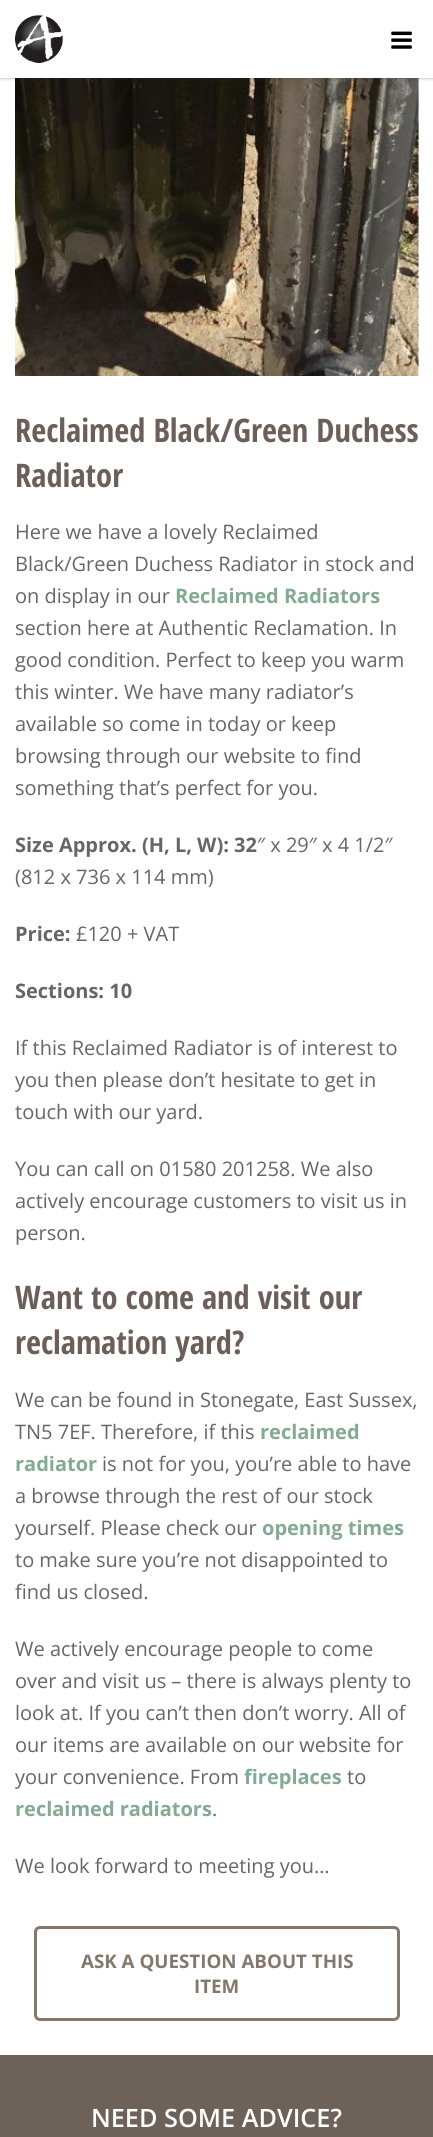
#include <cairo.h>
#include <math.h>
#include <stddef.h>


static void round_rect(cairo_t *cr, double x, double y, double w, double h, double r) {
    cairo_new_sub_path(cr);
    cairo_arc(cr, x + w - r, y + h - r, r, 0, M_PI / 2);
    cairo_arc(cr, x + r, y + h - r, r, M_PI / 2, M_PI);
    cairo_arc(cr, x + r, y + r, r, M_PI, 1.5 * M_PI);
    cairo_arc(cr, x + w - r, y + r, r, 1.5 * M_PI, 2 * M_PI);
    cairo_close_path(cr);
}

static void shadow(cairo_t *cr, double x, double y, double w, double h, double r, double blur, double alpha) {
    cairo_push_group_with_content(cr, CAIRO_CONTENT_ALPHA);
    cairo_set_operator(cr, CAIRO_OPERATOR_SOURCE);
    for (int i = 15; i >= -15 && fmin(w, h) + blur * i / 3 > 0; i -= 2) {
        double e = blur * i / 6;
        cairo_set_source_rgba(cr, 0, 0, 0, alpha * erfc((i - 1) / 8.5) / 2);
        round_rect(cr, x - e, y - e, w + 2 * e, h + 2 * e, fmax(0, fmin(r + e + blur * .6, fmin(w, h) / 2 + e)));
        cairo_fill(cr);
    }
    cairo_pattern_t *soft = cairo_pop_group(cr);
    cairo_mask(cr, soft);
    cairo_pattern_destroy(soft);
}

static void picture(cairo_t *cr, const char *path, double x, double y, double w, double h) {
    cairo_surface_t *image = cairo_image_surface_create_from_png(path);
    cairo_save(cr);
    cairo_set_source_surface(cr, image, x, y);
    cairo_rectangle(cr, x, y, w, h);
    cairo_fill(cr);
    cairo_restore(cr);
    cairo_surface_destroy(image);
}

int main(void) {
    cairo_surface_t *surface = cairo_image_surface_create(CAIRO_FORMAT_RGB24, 433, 2137);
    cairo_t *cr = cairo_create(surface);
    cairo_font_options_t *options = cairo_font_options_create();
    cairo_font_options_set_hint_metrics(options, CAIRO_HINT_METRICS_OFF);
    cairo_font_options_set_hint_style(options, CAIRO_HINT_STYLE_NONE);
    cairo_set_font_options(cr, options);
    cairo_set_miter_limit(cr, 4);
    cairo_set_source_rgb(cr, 1, 1, 1);
    cairo_paint(cr);
    picture(cr, "img3.png", 15, 78, 404, 298);
    cairo_set_source_rgb(cr, 0.255, 0.235, 0.22);
    shadow(cr, 0, 0, 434, 78, 0, 2, 0.45);
    cairo_set_source_rgb(cr, 1, 1, 1);
    cairo_rectangle(cr, 0, 0, 433, 78);
    cairo_fill(cr);
    picture(cr, "img1.png", 15, 15, 48, 48);
    picture(cr, "img2.png", 391, 31, 21, 18);
    cairo_select_font_face(cr, "Open Sans Condensed", CAIRO_FONT_SLANT_NORMAL, CAIRO_FONT_WEIGHT_BOLD);
    cairo_set_font_size(cr, 32.5);
    cairo_set_source_rgb(cr, 0.424, 0.373, 0.349);
    cairo_move_to(cr, 15, 442);
    cairo_show_text(cr, "Reclaimed Black/Green Duchess");
    cairo_move_to(cr, 15, 487);
    cairo_show_text(cr, "Radiator");
    cairo_select_font_face(cr, "Open Sans", CAIRO_FONT_SLANT_NORMAL, CAIRO_FONT_WEIGHT_NORMAL);
    cairo_set_font_size(cr, 20);
    cairo_set_source_rgb(cr, 0.4, 0.4, 0.4);
    cairo_move_to(cr, 15, 539);
    cairo_show_text(cr, "Here we have a lovely Reclaimed");
    cairo_move_to(cr, 15, 571);
    cairo_show_text(cr, "Black/Green Duchess Radiator in stock and");
    cairo_move_to(cr, 15, 603);
    cairo_show_text(cr, "on display in our");
    cairo_select_font_face(cr, "Open Sans", CAIRO_FONT_SLANT_NORMAL, CAIRO_FONT_WEIGHT_BOLD);
    cairo_set_source_rgb(cr, 0.514, 0.667, 0.573);
    cairo_move_to(cr, 175, 603);
    cairo_show_text(cr, "Reclaimed Radiators");
    cairo_select_font_face(cr, "Open Sans", CAIRO_FONT_SLANT_NORMAL, CAIRO_FONT_WEIGHT_NORMAL);
    cairo_set_source_rgb(cr, 0.4, 0.4, 0.4);
    cairo_move_to(cr, 15, 635);
    cairo_show_text(cr, "section here at Authentic Reclamation. In");
    cairo_move_to(cr, 15, 667);
    cairo_show_text(cr, "good condition. Perfect to keep you warm");
    cairo_move_to(cr, 15, 699);
    cairo_show_text(cr, "this winter. We have many radiator’s");
    cairo_move_to(cr, 15, 731);
    cairo_show_text(cr, "available so come in today or keep");
    cairo_move_to(cr, 15, 763);
    cairo_show_text(cr, "browsing through our website to find");
    cairo_move_to(cr, 15, 795);
    cairo_show_text(cr, "something that’s perfect for you.");
    cairo_select_font_face(cr, "Open Sans", CAIRO_FONT_SLANT_NORMAL, CAIRO_FONT_WEIGHT_BOLD);
    cairo_move_to(cr, 15, 852);
    cairo_show_text(cr, "Size Approx. (H, L, W): 32");
    cairo_select_font_face(cr, "Open Sans", CAIRO_FONT_SLANT_NORMAL, CAIRO_FONT_WEIGHT_NORMAL);
    cairo_move_to(cr, 257, 852);
    cairo_show_text(cr, "″ x 29″ x 4 1/2″");
    cairo_move_to(cr, 15, 884);
    cairo_show_text(cr, "(812 x 736 x 114 mm)");
    cairo_select_font_face(cr, "Open Sans", CAIRO_FONT_SLANT_NORMAL, CAIRO_FONT_WEIGHT_BOLD);
    cairo_move_to(cr, 15, 941);
    cairo_show_text(cr, "Price:");
    cairo_select_font_face(cr, "Open Sans", CAIRO_FONT_SLANT_NORMAL, CAIRO_FONT_WEIGHT_NORMAL);
    cairo_move_to(cr, 76, 941);
    cairo_show_text(cr, "£120 + VAT");
    cairo_select_font_face(cr, "Open Sans", CAIRO_FONT_SLANT_NORMAL, CAIRO_FONT_WEIGHT_BOLD);
    cairo_move_to(cr, 15, 998);
    cairo_show_text(cr, "Sections: 10");
    cairo_select_font_face(cr, "Open Sans", CAIRO_FONT_SLANT_NORMAL, CAIRO_FONT_WEIGHT_NORMAL);
    cairo_move_to(cr, 15, 1055);
    cairo_show_text(cr, "If this Reclaimed Radiator is of interest to");
    cairo_move_to(cr, 15, 1087);
    cairo_show_text(cr, "you then please don’t hesitate to get in");
    cairo_move_to(cr, 15, 1119);
    cairo_show_text(cr, "touch with our yard.");
    cairo_move_to(cr, 15, 1176);
    cairo_show_text(cr, "You can call on 01580 201258. We also");
    cairo_move_to(cr, 15, 1208);
    cairo_show_text(cr, "actively encourage customers to visit us in");
    cairo_move_to(cr, 15, 1240);
    cairo_show_text(cr, "person.");
    cairo_select_font_face(cr, "Open Sans Condensed", CAIRO_FONT_SLANT_NORMAL, CAIRO_FONT_WEIGHT_BOLD);
    cairo_set_font_size(cr, 32.5);
    cairo_set_source_rgb(cr, 0.424, 0.373, 0.349);
    cairo_move_to(cr, 15, 1309);
    cairo_show_text(cr, "Want to come and visit our");
    cairo_move_to(cr, 15, 1354);
    cairo_show_text(cr, "reclamation yard?");
    cairo_select_font_face(cr, "Open Sans", CAIRO_FONT_SLANT_NORMAL, CAIRO_FONT_WEIGHT_NORMAL);
    cairo_set_font_size(cr, 20);
    cairo_set_source_rgb(cr, 0.4, 0.4, 0.4);
    cairo_move_to(cr, 15, 1407);
    cairo_show_text(cr, "We can be found in Stonegate, East Sussex,");
    cairo_move_to(cr, 15, 1439);
    cairo_show_text(cr, "TN5 7EF. Therefore, if this");
    cairo_select_font_face(cr, "Open Sans", CAIRO_FONT_SLANT_NORMAL, CAIRO_FONT_WEIGHT_BOLD);
    cairo_set_source_rgb(cr, 0.514, 0.667, 0.573);
    cairo_move_to(cr, 260, 1439);
    cairo_show_text(cr, "reclaimed");
    cairo_move_to(cr, 15, 1471);
    cairo_show_text(cr, "radiator");
    cairo_select_font_face(cr, "Open Sans", CAIRO_FONT_SLANT_NORMAL, CAIRO_FONT_WEIGHT_NORMAL);
    cairo_set_source_rgb(cr, 0.4, 0.4, 0.4);
    cairo_move_to(cr, 102, 1471);
    cairo_show_text(cr, "is not for you, you’re able to have");
    cairo_move_to(cr, 15, 1503);
    cairo_show_text(cr, "a browse through the rest of our stock");
    cairo_move_to(cr, 15, 1535);
    cairo_show_text(cr, "yourself. Please check our");
    cairo_select_font_face(cr, "Open Sans", CAIRO_FONT_SLANT_NORMAL, CAIRO_FONT_WEIGHT_BOLD);
    cairo_set_source_rgb(cr, 0.514, 0.667, 0.573);
    cairo_move_to(cr, 262, 1535);
    cairo_show_text(cr, "opening times");
    cairo_select_font_face(cr, "Open Sans", CAIRO_FONT_SLANT_NORMAL, CAIRO_FONT_WEIGHT_NORMAL);
    cairo_set_source_rgb(cr, 0.4, 0.4, 0.4);
    cairo_move_to(cr, 15, 1567);
    cairo_show_text(cr, "to make sure you’re not disappointed to");
    cairo_move_to(cr, 15, 1599);
    cairo_show_text(cr, "find us closed.");
    cairo_move_to(cr, 15, 1656);
    cairo_show_text(cr, "We actively encourage people to come");
    cairo_move_to(cr, 15, 1688);
    cairo_show_text(cr, "over and visit us – there is always plenty to");
    cairo_move_to(cr, 15, 1720);
    cairo_show_text(cr, "look at. If you can’t then don’t worry. All of");
    cairo_move_to(cr, 15, 1752);
    cairo_show_text(cr, "our items are available on our website for");
    cairo_move_to(cr, 15, 1784);
    cairo_show_text(cr, "your convenience. From");
    cairo_select_font_face(cr, "Open Sans", CAIRO_FONT_SLANT_NORMAL, CAIRO_FONT_WEIGHT_BOLD);
    cairo_set_source_rgb(cr, 0.514, 0.667, 0.573);
    cairo_move_to(cr, 244, 1784);
    cairo_show_text(cr, "fireplaces");
    cairo_select_font_face(cr, "Open Sans", CAIRO_FONT_SLANT_NORMAL, CAIRO_FONT_WEIGHT_NORMAL);
    cairo_set_source_rgb(cr, 0.4, 0.4, 0.4);
    cairo_move_to(cr, 347, 1784);
    cairo_show_text(cr, "to");
    cairo_select_font_face(cr, "Open Sans", CAIRO_FONT_SLANT_NORMAL, CAIRO_FONT_WEIGHT_BOLD);
    cairo_set_source_rgb(cr, 0.514, 0.667, 0.573);
    cairo_move_to(cr, 15, 1816);
    cairo_show_text(cr, "reclaimed radiators");
    cairo_select_font_face(cr, "Open Sans", CAIRO_FONT_SLANT_NORMAL, CAIRO_FONT_WEIGHT_NORMAL);
    cairo_set_source_rgb(cr, 0.4, 0.4, 0.4);
    cairo_move_to(cr, 212, 1816);
    cairo_show_text(cr, ".");
    cairo_move_to(cr, 15, 1873);
    cairo_show_text(cr, "We look forward to meeting you…");
    round_rect(cr, 35.5, 1927.5, 363, 92, 4.5);
    cairo_set_source_rgb(cr, 0.518, 0.471, 0.435);
    cairo_set_line_width(cr, 3);
    cairo_stroke(cr);
    cairo_select_font_face(cr, "Open Sans", CAIRO_FONT_SLANT_NORMAL, CAIRO_FONT_WEIGHT_BOLD);
    cairo_set_font_size(cr, 18.75);
    cairo_set_source_rgb(cr, 0.518, 0.471, 0.427);
    cairo_move_to(cr, 81, 1968);
    cairo_show_text(cr, "ASK A QUESTION ABOUT THIS");
    cairo_move_to(cr, 194, 1993);
    cairo_show_text(cr, "ITEM");
    cairo_set_source_rgb(cr, 0.424, 0.384, 0.353);
    cairo_rectangle(cr, 0, 2055, 433, 82);
    cairo_fill(cr);
    cairo_select_font_face(cr, "Open Sans SemiBold", CAIRO_FONT_SLANT_NORMAL, CAIRO_FONT_WEIGHT_NORMAL);
    cairo_set_font_size(cr, 25.25);
    cairo_set_source_rgb(cr, 1, 1, 1);
    cairo_move_to(cr, 91, 2127);
    cairo_show_text(cr, "NEED SOME ADVICE?");
    cairo_surface_write_to_png(surface, "page.png");
    cairo_font_options_destroy(options);
    cairo_destroy(cr);
    cairo_surface_destroy(surface);
    return 0;
}
